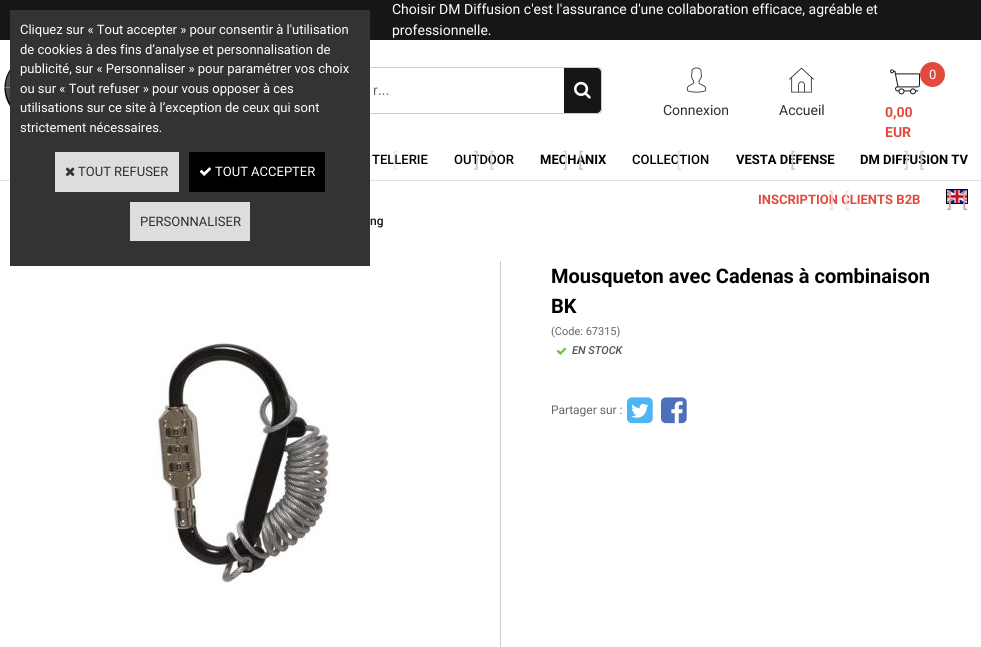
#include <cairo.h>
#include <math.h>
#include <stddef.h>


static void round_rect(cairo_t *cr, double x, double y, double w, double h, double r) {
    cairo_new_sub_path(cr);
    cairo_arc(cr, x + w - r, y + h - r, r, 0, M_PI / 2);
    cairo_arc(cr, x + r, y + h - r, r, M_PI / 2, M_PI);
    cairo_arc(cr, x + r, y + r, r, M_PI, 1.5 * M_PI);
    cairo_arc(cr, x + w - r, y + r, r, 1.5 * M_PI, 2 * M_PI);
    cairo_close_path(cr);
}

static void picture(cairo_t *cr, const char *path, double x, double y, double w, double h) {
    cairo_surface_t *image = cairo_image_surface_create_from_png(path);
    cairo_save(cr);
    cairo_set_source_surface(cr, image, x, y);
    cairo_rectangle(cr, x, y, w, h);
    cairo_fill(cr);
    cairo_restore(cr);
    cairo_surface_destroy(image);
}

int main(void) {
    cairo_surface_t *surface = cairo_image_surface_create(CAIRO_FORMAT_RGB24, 981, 647);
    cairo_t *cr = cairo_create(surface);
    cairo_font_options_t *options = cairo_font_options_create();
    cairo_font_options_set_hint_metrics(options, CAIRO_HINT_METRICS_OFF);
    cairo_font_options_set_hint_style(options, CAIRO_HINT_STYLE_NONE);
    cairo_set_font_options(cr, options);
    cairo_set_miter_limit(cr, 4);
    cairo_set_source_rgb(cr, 1, 1, 1);
    cairo_paint(cr);
    cairo_set_source_rgb(cr, 0.086, 0.086, 0.086);
    cairo_rectangle(cr, 0, 0, 981, 40);
    cairo_fill(cr);
    cairo_set_source_rgb(cr, 0.886, 0.886, 0.886);
    cairo_rectangle(cr, 0, 180, 981, 1);
    cairo_fill(cr);
    round_rect(cr, 294.5, 67.5, 307, 46, 3.5);
    cairo_set_source_rgb(cr, 0.8, 0.8, 0.8);
    cairo_set_line_width(cr, 1);
    cairo_stroke(cr);
    cairo_set_source_rgb(cr, 0.2, 0.2, 0.2);
    cairo_rectangle(cr, 10, 10, 360, 256);
    cairo_fill(cr);
    cairo_select_font_face(cr, "Roboto", CAIRO_FONT_SLANT_NORMAL, CAIRO_FONT_WEIGHT_NORMAL);
    cairo_set_font_size(cr, 13);
    cairo_set_source_rgb(cr, 1, 1, 1);
    cairo_move_to(cr, 20, 34);
    cairo_show_text(cr, "Cliquez sur « Tout accepter » pour consentir à l'utilisation");
    cairo_move_to(cr, 20, 54);
    cairo_show_text(cr, "de cookies à des fins d’analyse et personnalisation de");
    cairo_move_to(cr, 20, 73);
    cairo_show_text(cr, "publicité, sur « Personnaliser » pour paramétrer vos choix");
    cairo_move_to(cr, 20, 93);
    cairo_show_text(cr, "ou sur « Tout refuser » pour vous opposer à ces");
    cairo_move_to(cr, 20, 112);
    cairo_show_text(cr, "utilisations sur ce site à l’exception de ceux qui sont");
    cairo_move_to(cr, 20, 132);
    cairo_show_text(cr, "strictement nécessaires.");
    cairo_set_source_rgb(cr, 0.867, 0.867, 0.867);
    cairo_rectangle(cr, 55, 152, 124, 40);
    cairo_fill(cr);
    picture(cr, "img1.png", 65, 167, 10, 10);
    cairo_set_source_rgb(cr, 0.18, 0.18, 0.18);
    cairo_move_to(cr, 78, 176);
    cairo_show_text(cr, "TOUT REFUSER");
    cairo_set_source_rgb(cr, 0, 0, 0);
    cairo_rectangle(cr, 189, 152, 136, 40);
    cairo_fill(cr);
    picture(cr, "img2.png", 199, 167, 13, 9);
    cairo_set_source_rgb(cr, 1, 1, 1);
    cairo_move_to(cr, 215, 176);
    cairo_show_text(cr, "TOUT ACCEPTER");
    cairo_set_source_rgb(cr, 0.867, 0.867, 0.867);
    cairo_rectangle(cr, 130, 202, 120, 39);
    cairo_fill(cr);
    cairo_set_source_rgb(cr, 0.18, 0.18, 0.18);
    cairo_move_to(cr, 140, 226);
    cairo_show_text(cr, "PERSONNALISER");
    cairo_set_font_size(cr, 14);
    cairo_set_source_rgb(cr, 1, 1, 1);
    cairo_move_to(cr, 392, 14);
    cairo_show_text(cr, "Choisir DM Diffusion c'est l'assurance d'une collaboration efficace, agréable et");
    cairo_move_to(cr, 392, 35);
    cairo_show_text(cr, "professionnelle.");
    picture(cr, "img3.png", 4, 54, 6, 68);
    cairo_select_font_face(cr, "Liberation Sans", CAIRO_FONT_SLANT_NORMAL, CAIRO_FONT_WEIGHT_NORMAL);
    cairo_set_source_rgb(cr, 0.4, 0.4, 0.4);
    cairo_move_to(cr, 373, 95);
    cairo_show_text(cr, "r...");
    cairo_set_source_rgb(cr, 0.086, 0.086, 0.086);
    cairo_new_path(cr);
    cairo_move_to(cr, 564, 68);
    cairo_line_to(cr, 597, 68);
    cairo_curve_to(cr, 599, 68, 601, 70, 601, 72);
    cairo_line_to(cr, 601, 109);
    cairo_curve_to(cr, 601, 111, 599, 113, 597, 113);
    cairo_line_to(cr, 564, 113);
    cairo_close_path(cr);
    cairo_fill(cr);
    picture(cr, "img4.png", 574, 81, 17, 18);
    picture(cr, "img5.png", 686, 67, 21, 26);
    cairo_select_font_face(cr, "Roboto", CAIRO_FONT_SLANT_NORMAL, CAIRO_FONT_WEIGHT_NORMAL);
    cairo_set_source_rgb(cr, 0.18, 0.18, 0.18);
    cairo_move_to(cr, 663, 115);
    cairo_show_text(cr, "Connexion");
    picture(cr, "img6.png", 789, 67, 25, 26);
    cairo_move_to(cr, 779, 115);
    cairo_show_text(cr, "Accueil");
    picture(cr, "img7.png", 890, 69, 30, 26);
    cairo_set_source_rgb(cr, 0.882, 0.29, 0.239);
    cairo_arc(cr, 932.5, 74.5, 12.5, 0, 2 * M_PI);
    cairo_fill(cr);
    cairo_set_font_size(cr, 13);
    cairo_set_source_rgb(cr, 1, 1, 1);
    cairo_move_to(cr, 929, 79);
    cairo_show_text(cr, "0");
    cairo_select_font_face(cr, "Roboto", CAIRO_FONT_SLANT_NORMAL, CAIRO_FONT_WEIGHT_BOLD);
    cairo_set_font_size(cr, 14);
    cairo_set_source_rgb(cr, 0.882, 0.29, 0.239);
    cairo_move_to(cr, 885, 117);
    cairo_show_text(cr, "0,00");
    cairo_move_to(cr, 885, 137);
    cairo_show_text(cr, "EUR");
    cairo_select_font_face(cr, "Roboto Medium", CAIRO_FONT_SLANT_NORMAL, CAIRO_FONT_WEIGHT_NORMAL);
    cairo_set_font_size(cr, 13);
    cairo_set_source_rgb(cr, 0, 0, 0);
    cairo_move_to(cr, 372, 164);
    cairo_show_text(cr, "TELLERIE");
    cairo_select_font_face(cr, "Roboto", CAIRO_FONT_SLANT_NORMAL, CAIRO_FONT_WEIGHT_NORMAL);
    cairo_set_font_size(cr, 20);
    cairo_set_source_rgb(cr, 0.918, 0.918, 0.918);
    cairo_move_to(cr, 392, 167);
    cairo_show_text(cr, "[");
    cairo_select_font_face(cr, "Roboto Medium", CAIRO_FONT_SLANT_NORMAL, CAIRO_FONT_WEIGHT_NORMAL);
    cairo_set_font_size(cr, 13);
    cairo_set_source_rgb(cr, 0, 0, 0);
    cairo_move_to(cr, 454, 164);
    cairo_show_text(cr, "OUTDOOR");
    cairo_select_font_face(cr, "Roboto", CAIRO_FONT_SLANT_NORMAL, CAIRO_FONT_WEIGHT_NORMAL);
    cairo_set_font_size(cr, 20);
    cairo_set_source_rgb(cr, 0.796, 0.796, 0.796);
    cairo_move_to(cr, 474, 167);
    cairo_show_text(cr, "]");
    cairo_set_source_rgb(cr, 0.847, 0.847, 0.847);
    cairo_move_to(cr, 489, 167);
    cairo_show_text(cr, "[");
    cairo_select_font_face(cr, "Roboto", CAIRO_FONT_SLANT_NORMAL, CAIRO_FONT_WEIGHT_BOLD);
    cairo_set_font_size(cr, 13);
    cairo_set_source_rgb(cr, 0, 0, 0);
    cairo_move_to(cr, 540, 164);
    cairo_show_text(cr, "MECHANIX");
    cairo_select_font_face(cr, "Roboto", CAIRO_FONT_SLANT_NORMAL, CAIRO_FONT_WEIGHT_NORMAL);
    cairo_set_font_size(cr, 20);
    cairo_set_source_rgb(cr, 0.847, 0.847, 0.847);
    cairo_move_to(cr, 563, 167);
    cairo_show_text(cr, "]");
    cairo_set_source_rgb(cr, 0.773, 0.773, 0.773);
    cairo_move_to(cr, 578, 167);
    cairo_show_text(cr, "[");
    cairo_select_font_face(cr, "Roboto Medium", CAIRO_FONT_SLANT_NORMAL, CAIRO_FONT_WEIGHT_NORMAL);
    cairo_set_font_size(cr, 13);
    cairo_set_source_rgb(cr, 0, 0, 0);
    cairo_move_to(cr, 632, 164);
    cairo_show_text(cr, "COLLECTION");
    cairo_select_font_face(cr, "Roboto", CAIRO_FONT_SLANT_NORMAL, CAIRO_FONT_WEIGHT_NORMAL);
    cairo_set_font_size(cr, 20);
    cairo_set_source_rgb(cr, 0.886, 0.886, 0.886);
    cairo_move_to(cr, 676, 167);
    cairo_show_text(cr, "[");
    cairo_select_font_face(cr, "Roboto", CAIRO_FONT_SLANT_NORMAL, CAIRO_FONT_WEIGHT_BOLD);
    cairo_set_font_size(cr, 13);
    cairo_set_source_rgb(cr, 0, 0, 0);
    cairo_move_to(cr, 736, 164);
    cairo_show_text(cr, "VESTA DEFENSE");
    cairo_select_font_face(cr, "Roboto", CAIRO_FONT_SLANT_NORMAL, CAIRO_FONT_WEIGHT_NORMAL);
    cairo_set_font_size(cr, 20);
    cairo_set_source_rgb(cr, 0.796, 0.796, 0.796);
    cairo_move_to(cr, 790, 167);
    cairo_show_text(cr, "[");
    cairo_select_font_face(cr, "Roboto", CAIRO_FONT_SLANT_NORMAL, CAIRO_FONT_WEIGHT_BOLD);
    cairo_set_font_size(cr, 13);
    cairo_set_source_rgb(cr, 0, 0, 0);
    cairo_move_to(cr, 860, 164);
    cairo_show_text(cr, "DM DIFFUSION TV");
    cairo_select_font_face(cr, "Roboto", CAIRO_FONT_SLANT_NORMAL, CAIRO_FONT_WEIGHT_NORMAL);
    cairo_set_font_size(cr, 20);
    cairo_set_source_rgb(cr, 0.847, 0.847, 0.847);
    cairo_move_to(cr, 904, 167);
    cairo_show_text(cr, "]");
    cairo_set_source_rgb(cr, 0.796, 0.796, 0.796);
    cairo_move_to(cr, 919, 167);
    cairo_show_text(cr, "[");
    cairo_select_font_face(cr, "Roboto", CAIRO_FONT_SLANT_NORMAL, CAIRO_FONT_WEIGHT_BOLD);
    cairo_set_font_size(cr, 13);
    cairo_set_source_rgb(cr, 0.882, 0.29, 0.239);
    cairo_move_to(cr, 758, 204);
    cairo_show_text(cr, "INSCRIPTION CLIENTS B2B");
    cairo_select_font_face(cr, "Roboto", CAIRO_FONT_SLANT_NORMAL, CAIRO_FONT_WEIGHT_NORMAL);
    cairo_set_font_size(cr, 20);
    cairo_set_source_rgb(cr, 0.973, 0.843, 0.831);
    cairo_move_to(cr, 829, 207);
    cairo_show_text(cr, "]");
    cairo_set_source_rgb(cr, 0.98, 0.878, 0.867);
    cairo_move_to(cr, 844, 207);
    cairo_show_text(cr, "[");
    picture(cr, "img8.png", 946, 189, 22, 15);
    cairo_set_source_rgb(cr, 0.792, 0.631, 0.678);
    cairo_move_to(cr, 947, 207);
    cairo_show_text(cr, "]");
    cairo_move_to(cr, 962, 207);
    cairo_show_text(cr, "[");
    cairo_select_font_face(cr, "Roboto Medium", CAIRO_FONT_SLANT_NORMAL, CAIRO_FONT_WEIGHT_NORMAL);
    cairo_set_font_size(cr, 12);
    cairo_set_source_rgb(cr, 0.086, 0.086, 0.086);
    cairo_move_to(cr, 370, 225);
    cairo_show_text(cr, "ng");
    picture(cr, "img9.png", 153, 342, 177, 242);
    cairo_set_source_rgb(cr, 0.8, 0.8, 0.8);
    cairo_rectangle(cr, 500, 261, 1, 386);
    cairo_fill(cr);
    cairo_select_font_face(cr, "Roboto", CAIRO_FONT_SLANT_NORMAL, CAIRO_FONT_WEIGHT_BOLD);
    cairo_set_font_size(cr, 20);
    cairo_set_source_rgb(cr, 0, 0, 0);
    cairo_move_to(cr, 551, 283);
    cairo_show_text(cr, "Mousqueton avec Cadenas à combinaison");
    cairo_move_to(cr, 551, 313);
    cairo_show_text(cr, "BK");
    cairo_select_font_face(cr, "Roboto", CAIRO_FONT_SLANT_NORMAL, CAIRO_FONT_WEIGHT_NORMAL);
    cairo_set_font_size(cr, 11);
    cairo_set_source_rgb(cr, 0.4, 0.4, 0.4);
    cairo_move_to(cr, 551, 335);
    cairo_show_text(cr, "(Code: 67315)");
    picture(cr, "img10.png", 556, 347, 11, 8);
    cairo_select_font_face(cr, "Roboto Medium", CAIRO_FONT_SLANT_ITALIC, CAIRO_FONT_WEIGHT_NORMAL);
    cairo_set_source_rgb(cr, 0.314, 0.314, 0.314);
    cairo_move_to(cr, 572, 354);
    cairo_show_text(cr, "EN STOCK");
    cairo_select_font_face(cr, "Roboto", CAIRO_FONT_SLANT_NORMAL, CAIRO_FONT_WEIGHT_NORMAL);
    cairo_set_font_size(cr, 12);
    cairo_set_source_rgb(cr, 0.4, 0.4, 0.4);
    cairo_move_to(cr, 551, 414);
    cairo_show_text(cr, "Partager sur :");
    picture(cr, "img11.png", 627, 397, 26, 27);
    picture(cr, "img12.png", 661, 397, 26, 27);
    cairo_surface_write_to_png(surface, "page.png");
    cairo_font_options_destroy(options);
    cairo_destroy(cr);
    cairo_surface_destroy(surface);
    return 0;
}
